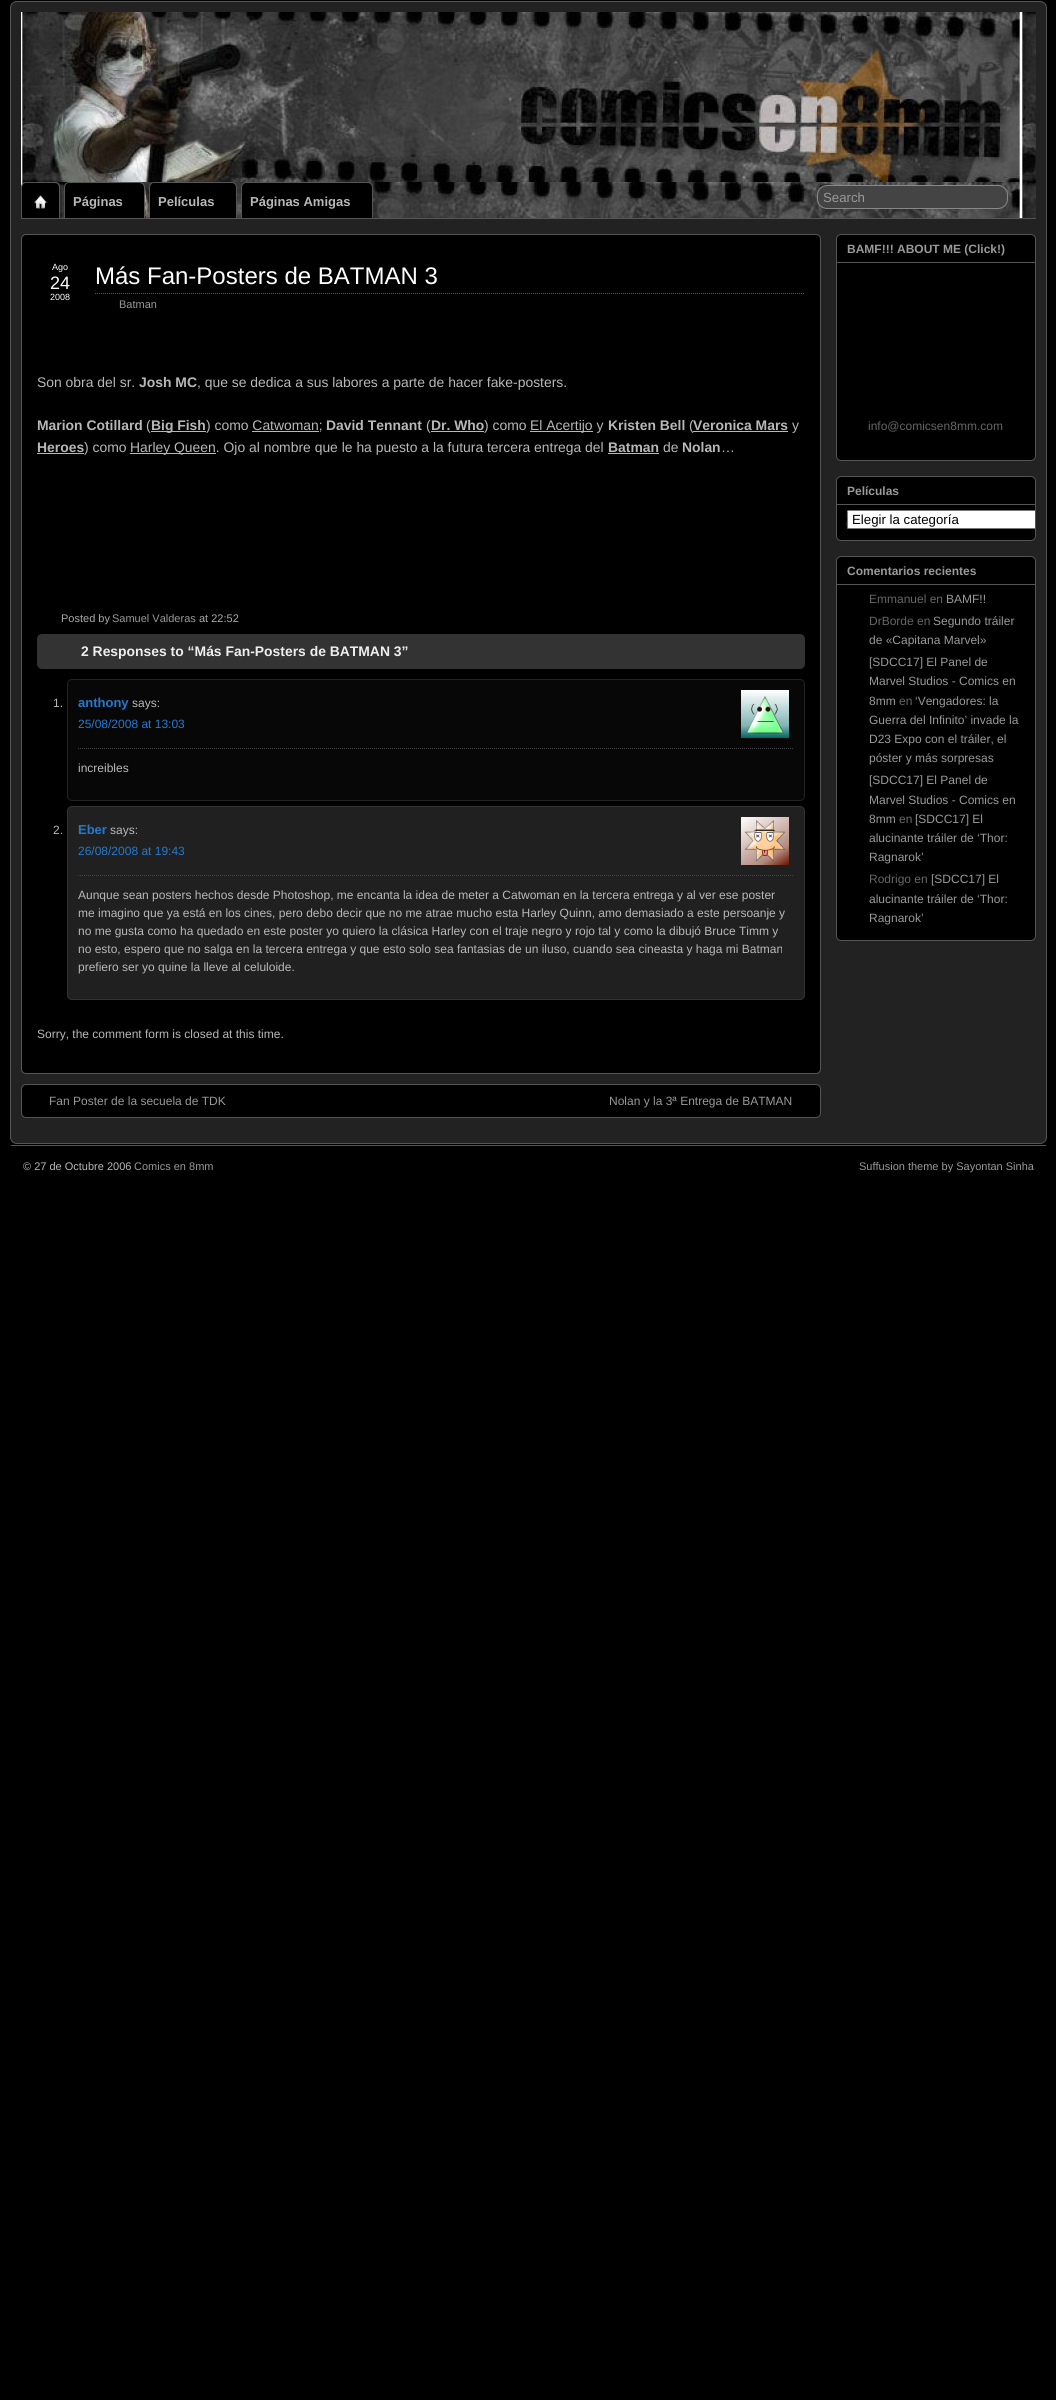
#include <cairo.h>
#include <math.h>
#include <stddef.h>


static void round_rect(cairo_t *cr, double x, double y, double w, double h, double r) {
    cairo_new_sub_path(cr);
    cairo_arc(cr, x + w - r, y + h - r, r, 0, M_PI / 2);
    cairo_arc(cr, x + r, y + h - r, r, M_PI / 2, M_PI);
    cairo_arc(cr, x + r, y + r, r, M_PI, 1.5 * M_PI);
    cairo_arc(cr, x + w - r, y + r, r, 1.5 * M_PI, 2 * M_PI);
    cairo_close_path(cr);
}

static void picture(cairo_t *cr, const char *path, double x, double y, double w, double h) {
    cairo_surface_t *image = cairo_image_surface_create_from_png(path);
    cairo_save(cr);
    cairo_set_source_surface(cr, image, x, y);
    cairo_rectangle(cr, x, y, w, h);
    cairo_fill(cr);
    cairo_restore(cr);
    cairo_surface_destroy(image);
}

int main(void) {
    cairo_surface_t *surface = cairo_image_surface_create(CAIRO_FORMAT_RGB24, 1056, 2400);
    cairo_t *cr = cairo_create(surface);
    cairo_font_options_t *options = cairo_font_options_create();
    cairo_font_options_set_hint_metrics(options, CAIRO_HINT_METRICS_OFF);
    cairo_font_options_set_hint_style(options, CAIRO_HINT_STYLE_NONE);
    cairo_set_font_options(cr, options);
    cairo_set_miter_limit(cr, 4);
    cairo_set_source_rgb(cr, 0, 0, 0);
    cairo_paint(cr);
    cairo_set_source_rgb(cr, 0.133, 0.133, 0.133);
    round_rect(cr, 10.5, 1.5, 1036, 1142, 6.5);
    cairo_fill_preserve(cr);
    cairo_set_source_rgb(cr, 0.333, 0.333, 0.333);
    cairo_set_line_width(cr, 1);
    cairo_stroke(cr);
    picture(cr, "img1.png", 21, 12, 1015, 206);
    cairo_rectangle(cr, 60, 218, 976, 1);
    cairo_fill(cr);
    cairo_new_path(cr);
    cairo_move_to(cr, 26, 182.5);
    cairo_line_to(cr, 55, 182.5);
    cairo_curve_to(cr, 57.5, 182.5, 59.5, 184.5, 59.5, 187);
    cairo_line_to(cr, 59.5, 218.5);
    cairo_line_to(cr, 21.5, 218.5);
    cairo_line_to(cr, 21.5, 187);
    cairo_curve_to(cr, 21.5, 184.5, 23.5, 182.5, 26, 182.5);
    cairo_close_path(cr);
    cairo_stroke(cr);
    cairo_set_source_rgb(cr, 0, 0, 0);
    cairo_new_path(cr);
    cairo_move_to(cr, 27, 183);
    cairo_line_to(cr, 54, 183);
    cairo_curve_to(cr, 57, 183, 59, 185, 59, 188);
    cairo_line_to(cr, 59, 218);
    cairo_line_to(cr, 22, 218);
    cairo_line_to(cr, 22, 188);
    cairo_curve_to(cr, 22, 185, 24, 183, 27, 183);
    cairo_close_path(cr);
    cairo_fill(cr);
    picture(cr, "img2.png", 34, 195, 13, 14);
    cairo_new_path(cr);
    cairo_move_to(cr, 69, 182.5);
    cairo_line_to(cr, 140, 182.5);
    cairo_curve_to(cr, 142.5, 182.5, 144.5, 184.5, 144.5, 187);
    cairo_line_to(cr, 144.5, 218.5);
    cairo_line_to(cr, 64.5, 218.5);
    cairo_line_to(cr, 64.5, 187);
    cairo_curve_to(cr, 64.5, 184.5, 66.5, 182.5, 69, 182.5);
    cairo_close_path(cr);
    cairo_set_source_rgb(cr, 0.333, 0.333, 0.333);
    cairo_stroke(cr);
    cairo_set_source_rgb(cr, 0, 0, 0);
    cairo_new_path(cr);
    cairo_move_to(cr, 70, 183);
    cairo_line_to(cr, 139, 183);
    cairo_curve_to(cr, 142, 183, 144, 185, 144, 188);
    cairo_line_to(cr, 144, 218);
    cairo_line_to(cr, 65, 218);
    cairo_line_to(cr, 65, 188);
    cairo_curve_to(cr, 65, 185, 67, 183, 70, 183);
    cairo_close_path(cr);
    cairo_fill(cr);
    cairo_select_font_face(cr, "Liberation Sans", CAIRO_FONT_SLANT_NORMAL, CAIRO_FONT_WEIGHT_BOLD);
    cairo_set_font_size(cr, 13);
    cairo_set_source_rgb(cr, 0.722, 0.722, 0.722);
    cairo_move_to(cr, 73, 206);
    cairo_show_text(cr, "Páginas");
    cairo_new_path(cr);
    cairo_move_to(cr, 154, 182.5);
    cairo_line_to(cr, 232, 182.5);
    cairo_curve_to(cr, 234.5, 182.5, 236.5, 184.5, 236.5, 187);
    cairo_line_to(cr, 236.5, 218.5);
    cairo_line_to(cr, 149.5, 218.5);
    cairo_line_to(cr, 149.5, 187);
    cairo_curve_to(cr, 149.5, 184.5, 151.5, 182.5, 154, 182.5);
    cairo_close_path(cr);
    cairo_set_source_rgb(cr, 0.333, 0.333, 0.333);
    cairo_stroke(cr);
    cairo_set_source_rgb(cr, 0, 0, 0);
    cairo_new_path(cr);
    cairo_move_to(cr, 155, 183);
    cairo_line_to(cr, 231, 183);
    cairo_curve_to(cr, 234, 183, 236, 185, 236, 188);
    cairo_line_to(cr, 236, 218);
    cairo_line_to(cr, 150, 218);
    cairo_line_to(cr, 150, 188);
    cairo_curve_to(cr, 150, 185, 152, 183, 155, 183);
    cairo_close_path(cr);
    cairo_fill(cr);
    cairo_set_source_rgb(cr, 0.722, 0.722, 0.722);
    cairo_move_to(cr, 158, 206);
    cairo_show_text(cr, "Películas");
    cairo_new_path(cr);
    cairo_move_to(cr, 246, 182.5);
    cairo_line_to(cr, 368, 182.5);
    cairo_curve_to(cr, 370.5, 182.5, 372.5, 184.5, 372.5, 187);
    cairo_line_to(cr, 372.5, 218.5);
    cairo_line_to(cr, 241.5, 218.5);
    cairo_line_to(cr, 241.5, 187);
    cairo_curve_to(cr, 241.5, 184.5, 243.5, 182.5, 246, 182.5);
    cairo_close_path(cr);
    cairo_set_source_rgb(cr, 0.333, 0.333, 0.333);
    cairo_stroke(cr);
    cairo_set_source_rgb(cr, 0, 0, 0);
    cairo_new_path(cr);
    cairo_move_to(cr, 247, 183);
    cairo_line_to(cr, 367, 183);
    cairo_curve_to(cr, 370, 183, 372, 185, 372, 188);
    cairo_line_to(cr, 372, 218);
    cairo_line_to(cr, 242, 218);
    cairo_line_to(cr, 242, 188);
    cairo_curve_to(cr, 242, 185, 244, 183, 247, 183);
    cairo_close_path(cr);
    cairo_fill(cr);
    cairo_set_source_rgb(cr, 0.722, 0.722, 0.722);
    cairo_move_to(cr, 250, 206);
    cairo_show_text(cr, "Páginas Amigas");
    cairo_set_source_rgb(cr, 0.267, 0.267, 0.267);
    round_rect(cr, 817.5, 185.5, 190, 23, 9.5);
    cairo_fill_preserve(cr);
    cairo_set_source_rgb(cr, 0.533, 0.533, 0.533);
    cairo_stroke(cr);
    cairo_select_font_face(cr, "Liberation Sans", CAIRO_FONT_SLANT_NORMAL, CAIRO_FONT_WEIGHT_NORMAL);
    cairo_set_font_size(cr, 13.25);
    cairo_set_source_rgb(cr, 0.6, 0.6, 0.6);
    cairo_move_to(cr, 823, 202);
    cairo_show_text(cr, "Search");
    cairo_set_source_rgb(cr, 0, 0, 0);
    round_rect(cr, 21.5, 234.5, 799, 839, 4.5);
    cairo_fill_preserve(cr);
    cairo_set_source_rgb(cr, 0.333, 0.333, 0.333);
    cairo_stroke(cr);
    cairo_set_font_size(cr, 9);
    cairo_set_source_rgb(cr, 1, 1, 1);
    cairo_move_to(cr, 52, 270);
    cairo_show_text(cr, "Ago");
    cairo_set_font_size(cr, 18);
    cairo_move_to(cr, 50, 289);
    cairo_show_text(cr, "24");
    cairo_set_font_size(cr, 9);
    cairo_move_to(cr, 50, 300);
    cairo_show_text(cr, "2008");
    cairo_new_path(cr);
    cairo_move_to(cr, 95, 293.5);
    cairo_line_to(cr, 805, 293.5);
    cairo_set_source_rgb(cr, 0.333, 0.333, 0.333);
    cairo_set_dash(cr, (double[]){1, 1}, 2, 0);
    cairo_stroke(cr);
    cairo_set_font_size(cr, 24);
    cairo_set_source_rgb(cr, 1, 1, 1);
    cairo_move_to(cr, 95, 284);
    cairo_show_text(cr, "Más Fan-Posters de BATMAN 3");
    cairo_set_font_size(cr, 11);
    cairo_set_source_rgb(cr, 0.6, 0.6, 0.6);
    cairo_move_to(cr, 119, 308);
    cairo_show_text(cr, "Batman");
    cairo_set_font_size(cr, 13.9);
    cairo_set_source_rgb(cr, 0.722, 0.722, 0.722);
    cairo_move_to(cr, 37, 387);
    cairo_show_text(cr, "Son obra del sr.");
    cairo_select_font_face(cr, "Liberation Sans", CAIRO_FONT_SLANT_NORMAL, CAIRO_FONT_WEIGHT_BOLD);
    cairo_move_to(cr, 139, 387);
    cairo_show_text(cr, "Josh MC");
    cairo_select_font_face(cr, "Liberation Sans", CAIRO_FONT_SLANT_NORMAL, CAIRO_FONT_WEIGHT_NORMAL);
    cairo_move_to(cr, 197, 387);
    cairo_show_text(cr, ", que se dedica a sus labores a parte de hacer fake-posters.");
    cairo_select_font_face(cr, "Liberation Sans", CAIRO_FONT_SLANT_NORMAL, CAIRO_FONT_WEIGHT_BOLD);
    cairo_move_to(cr, 37, 430);
    cairo_show_text(cr, "Marion Cotillard");
    cairo_select_font_face(cr, "Liberation Sans", CAIRO_FONT_SLANT_NORMAL, CAIRO_FONT_WEIGHT_NORMAL);
    cairo_move_to(cr, 146, 430);
    cairo_show_text(cr, "(");
    cairo_rectangle(cr, 151, 431, 55, 1);
    cairo_fill(cr);
    cairo_select_font_face(cr, "Liberation Sans", CAIRO_FONT_SLANT_NORMAL, CAIRO_FONT_WEIGHT_BOLD);
    cairo_move_to(cr, 151, 430);
    cairo_show_text(cr, "Big Fish");
    cairo_select_font_face(cr, "Liberation Sans", CAIRO_FONT_SLANT_NORMAL, CAIRO_FONT_WEIGHT_NORMAL);
    cairo_move_to(cr, 206, 430);
    cairo_show_text(cr, ") como Catwoman;");
    cairo_select_font_face(cr, "Liberation Sans", CAIRO_FONT_SLANT_NORMAL, CAIRO_FONT_WEIGHT_BOLD);
    cairo_move_to(cr, 326, 430);
    cairo_show_text(cr, "David Tennant");
    cairo_select_font_face(cr, "Liberation Sans", CAIRO_FONT_SLANT_NORMAL, CAIRO_FONT_WEIGHT_NORMAL);
    cairo_move_to(cr, 426, 430);
    cairo_show_text(cr, "(");
    cairo_select_font_face(cr, "Liberation Sans", CAIRO_FONT_SLANT_NORMAL, CAIRO_FONT_WEIGHT_BOLD);
    cairo_move_to(cr, 431, 430);
    cairo_show_text(cr, "Dr. Who");
    cairo_rectangle(cr, 431, 431, 53, 1);
    cairo_fill(cr);
    cairo_select_font_face(cr, "Liberation Sans", CAIRO_FONT_SLANT_NORMAL, CAIRO_FONT_WEIGHT_NORMAL);
    cairo_move_to(cr, 484, 430);
    cairo_show_text(cr, ") como");
    cairo_rectangle(cr, 530, 431, 63, 1);
    cairo_fill(cr);
    cairo_move_to(cr, 530, 430);
    cairo_show_text(cr, "El Acertijo y");
    cairo_select_font_face(cr, "Liberation Sans", CAIRO_FONT_SLANT_NORMAL, CAIRO_FONT_WEIGHT_BOLD);
    cairo_move_to(cr, 608, 430);
    cairo_show_text(cr, "Kristen Bell");
    cairo_select_font_face(cr, "Liberation Sans", CAIRO_FONT_SLANT_NORMAL, CAIRO_FONT_WEIGHT_NORMAL);
    cairo_move_to(cr, 689, 430);
    cairo_show_text(cr, "(");
    cairo_select_font_face(cr, "Liberation Sans", CAIRO_FONT_SLANT_NORMAL, CAIRO_FONT_WEIGHT_BOLD);
    cairo_move_to(cr, 693, 430);
    cairo_show_text(cr, "Veronica Mars");
    cairo_rectangle(cr, 693, 431, 95, 1);
    cairo_fill(cr);
    cairo_select_font_face(cr, "Liberation Sans", CAIRO_FONT_SLANT_NORMAL, CAIRO_FONT_WEIGHT_NORMAL);
    cairo_move_to(cr, 792, 430);
    cairo_show_text(cr, "y");
    cairo_rectangle(cr, 252, 431, 67, 1);
    cairo_fill(cr);
    cairo_select_font_face(cr, "Liberation Sans", CAIRO_FONT_SLANT_NORMAL, CAIRO_FONT_WEIGHT_BOLD);
    cairo_move_to(cr, 37, 452);
    cairo_show_text(cr, "Heroes");
    cairo_rectangle(cr, 37, 453, 47, 1);
    cairo_fill(cr);
    cairo_select_font_face(cr, "Liberation Sans", CAIRO_FONT_SLANT_NORMAL, CAIRO_FONT_WEIGHT_NORMAL);
    cairo_move_to(cr, 84, 452);
    cairo_show_text(cr, ") como");
    cairo_rectangle(cr, 130, 453, 86, 1);
    cairo_fill(cr);
    cairo_move_to(cr, 130, 452);
    cairo_show_text(cr, "Harley Queen. Ojo al nombre que le ha puesto a la futura tercera entrega del");
    cairo_select_font_face(cr, "Liberation Sans", CAIRO_FONT_SLANT_NORMAL, CAIRO_FONT_WEIGHT_BOLD);
    cairo_move_to(cr, 608, 452);
    cairo_show_text(cr, "Batman");
    cairo_rectangle(cr, 608, 453, 51, 1);
    cairo_fill(cr);
    cairo_select_font_face(cr, "Liberation Sans", CAIRO_FONT_SLANT_NORMAL, CAIRO_FONT_WEIGHT_NORMAL);
    cairo_move_to(cr, 663, 452);
    cairo_show_text(cr, "de");
    cairo_select_font_face(cr, "Liberation Sans", CAIRO_FONT_SLANT_NORMAL, CAIRO_FONT_WEIGHT_BOLD);
    cairo_move_to(cr, 682, 452);
    cairo_show_text(cr, "Nolan");
    cairo_select_font_face(cr, "Liberation Sans", CAIRO_FONT_SLANT_NORMAL, CAIRO_FONT_WEIGHT_NORMAL);
    cairo_move_to(cr, 721, 452);
    cairo_show_text(cr, "…");
    cairo_set_font_size(cr, 11);
    cairo_set_source_rgb(cr, 0.667, 0.667, 0.667);
    cairo_move_to(cr, 61, 622);
    cairo_show_text(cr, "Posted by");
    cairo_set_source_rgb(cr, 0.6, 0.6, 0.6);
    cairo_move_to(cr, 112, 622);
    cairo_show_text(cr, "Samuel Valderas");
    cairo_set_source_rgb(cr, 0.667, 0.667, 0.667);
    cairo_move_to(cr, 199, 622);
    cairo_show_text(cr, "at 22:52");
    cairo_set_source_rgb(cr, 0.2, 0.2, 0.2);
    round_rect(cr, 37, 634, 768, 35, 5);
    cairo_fill(cr);
    cairo_select_font_face(cr, "Liberation Sans", CAIRO_FONT_SLANT_NORMAL, CAIRO_FONT_WEIGHT_BOLD);
    cairo_set_font_size(cr, 13.9);
    cairo_set_source_rgb(cr, 0.933, 0.933, 0.933);
    cairo_move_to(cr, 81, 656);
    cairo_show_text(cr, "2 Responses to “Más Fan-Posters de BATMAN 3”");
    cairo_set_source_rgb(cr, 0.031, 0.031, 0.031);
    round_rect(cr, 67.5, 679.5, 737, 121, 4.5);
    cairo_fill_preserve(cr);
    cairo_set_source_rgb(cr, 0.133, 0.133, 0.133);
    cairo_set_dash(cr, NULL, 0, 0);
    cairo_stroke(cr);
    cairo_select_font_face(cr, "Liberation Sans", CAIRO_FONT_SLANT_NORMAL, CAIRO_FONT_WEIGHT_NORMAL);
    cairo_set_font_size(cr, 12);
    cairo_set_source_rgb(cr, 0.722, 0.722, 0.722);
    cairo_move_to(cr, 53, 707);
    cairo_show_text(cr, "1.");
    cairo_new_path(cr);
    cairo_move_to(cr, 78, 748.5);
    cairo_line_to(cr, 794, 748.5);
    cairo_set_source_rgb(cr, 0.267, 0.267, 0.267);
    cairo_set_dash(cr, (double[]){1, 1}, 2, 0);
    cairo_stroke(cr);
    cairo_select_font_face(cr, "Liberation Sans", CAIRO_FONT_SLANT_NORMAL, CAIRO_FONT_WEIGHT_BOLD);
    cairo_set_font_size(cr, 13);
    cairo_set_source_rgb(cr, 0.133, 0.478, 0.82);
    cairo_move_to(cr, 78, 707);
    cairo_show_text(cr, "anthony");
    cairo_select_font_face(cr, "Liberation Sans", CAIRO_FONT_SLANT_NORMAL, CAIRO_FONT_WEIGHT_NORMAL);
    cairo_set_font_size(cr, 12);
    cairo_set_source_rgb(cr, 0.722, 0.722, 0.722);
    cairo_move_to(cr, 132, 707);
    cairo_show_text(cr, "says:");
    picture(cr, "img3.png", 741, 690, 48, 48);
    cairo_set_source_rgb(cr, 0.133, 0.478, 0.82);
    cairo_move_to(cr, 78, 728);
    cairo_show_text(cr, "25/08/2008 at 13:03");
    cairo_set_source_rgb(cr, 0.722, 0.722, 0.722);
    cairo_move_to(cr, 78, 772);
    cairo_show_text(cr, "increibles");
    cairo_set_source_rgb(cr, 0.125, 0.125, 0.125);
    round_rect(cr, 67.5, 806.5, 737, 193, 4.5);
    cairo_fill_preserve(cr);
    cairo_set_source_rgb(cr, 0.2, 0.2, 0.2);
    cairo_set_dash(cr, NULL, 0, 0);
    cairo_stroke(cr);
    cairo_set_source_rgb(cr, 0.722, 0.722, 0.722);
    cairo_move_to(cr, 53, 834);
    cairo_show_text(cr, "2.");
    cairo_new_path(cr);
    cairo_move_to(cr, 78, 875.5);
    cairo_line_to(cr, 794, 875.5);
    cairo_set_source_rgb(cr, 0.267, 0.267, 0.267);
    cairo_set_dash(cr, (double[]){1, 1}, 2, 0);
    cairo_stroke(cr);
    cairo_select_font_face(cr, "Liberation Sans", CAIRO_FONT_SLANT_NORMAL, CAIRO_FONT_WEIGHT_BOLD);
    cairo_set_font_size(cr, 13);
    cairo_set_source_rgb(cr, 0.133, 0.478, 0.82);
    cairo_move_to(cr, 78, 834);
    cairo_show_text(cr, "Eber");
    cairo_select_font_face(cr, "Liberation Sans", CAIRO_FONT_SLANT_NORMAL, CAIRO_FONT_WEIGHT_NORMAL);
    cairo_set_font_size(cr, 12);
    cairo_set_source_rgb(cr, 0.722, 0.722, 0.722);
    cairo_move_to(cr, 110, 834);
    cairo_show_text(cr, "says:");
    picture(cr, "img4.png", 741, 817, 48, 48);
    cairo_set_source_rgb(cr, 0.133, 0.478, 0.82);
    cairo_move_to(cr, 78, 855);
    cairo_show_text(cr, "26/08/2008 at 19:43");
    cairo_set_source_rgb(cr, 0.722, 0.722, 0.722);
    cairo_move_to(cr, 78, 899);
    cairo_show_text(cr, "Aunque sean posters hechos desde Photoshop, me encanta la idea de meter a Catwoman en la tercera entrega y al ver ese poster");
    cairo_move_to(cr, 78, 917);
    cairo_show_text(cr, "me imagino que ya está en los cines, pero debo decir que no me atrae mucho esta Harley Quinn, amo demasiado a este persoanje y");
    cairo_move_to(cr, 78, 935);
    cairo_show_text(cr, "no me gusta como ha quedado en este poster yo quiero la clásica Harley con el traje negro y rojo tal y como la dibujó Bruce Timm y");
    cairo_move_to(cr, 78, 953);
    cairo_show_text(cr, "no esto, espero que no salga en la tercera entrega y que esto solo sea fantasias de un iluso, cuando sea cineasta y haga mi Batman");
    cairo_move_to(cr, 78, 971);
    cairo_show_text(cr, "prefiero ser yo quine la lleve al celuloide.");
    cairo_move_to(cr, 37, 1038);
    cairo_show_text(cr, "Sorry, the comment form is closed at this time.");
    cairo_set_source_rgb(cr, 0, 0, 0);
    round_rect(cr, 21.5, 1084.5, 799, 33, 4.5);
    cairo_fill_preserve(cr);
    cairo_set_source_rgb(cr, 0.333, 0.333, 0.333);
    cairo_set_dash(cr, NULL, 0, 0);
    cairo_stroke(cr);
    cairo_set_source_rgb(cr, 0.6, 0.6, 0.6);
    cairo_move_to(cr, 49, 1105);
    cairo_show_text(cr, "Fan Poster de la secuela de TDK");
    cairo_move_to(cr, 609, 1105);
    cairo_show_text(cr, "Nolan y la 3ª Entrega de BATMAN");
    cairo_set_source_rgb(cr, 0, 0, 0);
    round_rect(cr, 836.5, 234.5, 199, 226, 4.5);
    cairo_fill_preserve(cr);
    cairo_set_source_rgb(cr, 0.333, 0.333, 0.333);
    cairo_stroke(cr);
    cairo_rectangle(cr, 837, 262, 198, 1);
    cairo_fill(cr);
    cairo_select_font_face(cr, "Liberation Sans", CAIRO_FONT_SLANT_NORMAL, CAIRO_FONT_WEIGHT_BOLD);
    cairo_set_source_rgb(cr, 0.6, 0.6, 0.6);
    cairo_move_to(cr, 847, 253);
    cairo_show_text(cr, "BAMF!!! ABOUT ME (Click!)");
    cairo_select_font_face(cr, "Liberation Sans", CAIRO_FONT_SLANT_NORMAL, CAIRO_FONT_WEIGHT_NORMAL);
    cairo_set_source_rgb(cr, 0.4, 0.4, 0.4);
    cairo_move_to(cr, 868, 430);
    cairo_show_text(cr, "info@comicsen8mm.com");
    cairo_set_source_rgb(cr, 0, 0, 0);
    round_rect(cr, 836.5, 476.5, 199, 64, 4.5);
    cairo_fill_preserve(cr);
    cairo_set_source_rgb(cr, 0.333, 0.333, 0.333);
    cairo_stroke(cr);
    cairo_rectangle(cr, 837, 504, 198, 1);
    cairo_fill(cr);
    cairo_select_font_face(cr, "Liberation Sans", CAIRO_FONT_SLANT_NORMAL, CAIRO_FONT_WEIGHT_BOLD);
    cairo_set_source_rgb(cr, 0.6, 0.6, 0.6);
    cairo_move_to(cr, 847, 495);
    cairo_show_text(cr, "Películas");
    cairo_set_source_rgb(cr, 1, 1, 1);
    cairo_new_path(cr);
    cairo_move_to(cr, 849, 510);
    cairo_line_to(cr, 1035, 510);
    cairo_line_to(cr, 1035, 529);
    cairo_line_to(cr, 849, 529);
    cairo_curve_to(cr, 848, 529, 847, 528, 847, 527);
    cairo_line_to(cr, 847, 512);
    cairo_curve_to(cr, 847, 511, 848, 510, 849, 510);
    cairo_close_path(cr);
    cairo_fill(cr);
    cairo_set_source_rgb(cr, 0.463, 0.463, 0.463);
    cairo_new_path(cr);
    cairo_move_to(cr, 849, 510);
    cairo_curve_to(cr, 846, 510, 847, 518, 847, 520);
    cairo_curve_to(cr, 847, 521, 846, 528, 848, 529);
    cairo_line_to(cr, 1035, 529);
    cairo_line_to(cr, 1035, 528);
    cairo_line_to(cr, 849, 528);
    cairo_curve_to(cr, 848, 528, 848, 528, 848, 527);
    cairo_line_to(cr, 848, 512);
    cairo_curve_to(cr, 848, 511, 848, 511, 849, 511);
    cairo_line_to(cr, 1035, 511);
    cairo_line_to(cr, 1035, 510);
    cairo_close_path(cr);
    cairo_fill(cr);
    cairo_select_font_face(cr, "Liberation Sans", CAIRO_FONT_SLANT_NORMAL, CAIRO_FONT_WEIGHT_NORMAL);
    cairo_set_font_size(cr, 13.25);
    cairo_set_source_rgb(cr, 0, 0, 0);
    cairo_move_to(cr, 852, 524);
    cairo_show_text(cr, "Elegir la categoría");
    round_rect(cr, 836.5, 556.5, 199, 384, 4.5);
    cairo_fill_preserve(cr);
    cairo_set_source_rgb(cr, 0.333, 0.333, 0.333);
    cairo_stroke(cr);
    cairo_rectangle(cr, 837, 584, 198, 1);
    cairo_fill(cr);
    cairo_select_font_face(cr, "Liberation Sans", CAIRO_FONT_SLANT_NORMAL, CAIRO_FONT_WEIGHT_BOLD);
    cairo_set_font_size(cr, 12);
    cairo_set_source_rgb(cr, 0.6, 0.6, 0.6);
    cairo_move_to(cr, 847, 575);
    cairo_show_text(cr, "Comentarios recientes");
    cairo_select_font_face(cr, "Liberation Sans", CAIRO_FONT_SLANT_NORMAL, CAIRO_FONT_WEIGHT_NORMAL);
    cairo_set_source_rgb(cr, 0.4, 0.4, 0.4);
    cairo_move_to(cr, 869, 603);
    cairo_show_text(cr, "Emmanuel en");
    cairo_set_source_rgb(cr, 0.6, 0.6, 0.6);
    cairo_move_to(cr, 946, 603);
    cairo_show_text(cr, "BAMF!!");
    cairo_set_source_rgb(cr, 0.4, 0.4, 0.4);
    cairo_move_to(cr, 869, 625);
    cairo_show_text(cr, "DrBorde en");
    cairo_set_source_rgb(cr, 0.6, 0.6, 0.6);
    cairo_move_to(cr, 933, 625);
    cairo_show_text(cr, "Segundo tráiler");
    cairo_move_to(cr, 869, 644);
    cairo_show_text(cr, "de «Capitana Marvel»");
    cairo_move_to(cr, 869, 666);
    cairo_show_text(cr, "[SDCC17] El Panel de");
    cairo_move_to(cr, 869, 685);
    cairo_show_text(cr, "Marvel Studios - Comics en");
    cairo_move_to(cr, 869, 705);
    cairo_show_text(cr, "8mm");
    cairo_set_source_rgb(cr, 0.4, 0.4, 0.4);
    cairo_move_to(cr, 899, 705);
    cairo_show_text(cr, "en");
    cairo_set_source_rgb(cr, 0.6, 0.6, 0.6);
    cairo_move_to(cr, 915, 705);
    cairo_show_text(cr, "‘Vengadores: la");
    cairo_move_to(cr, 869, 724);
    cairo_show_text(cr, "Guerra del Infinito’ invade la");
    cairo_move_to(cr, 869, 743);
    cairo_show_text(cr, "D23 Expo con el tráiler, el");
    cairo_move_to(cr, 869, 762);
    cairo_show_text(cr, "póster y más sorpresas");
    cairo_move_to(cr, 869, 784);
    cairo_show_text(cr, "[SDCC17] El Panel de");
    cairo_move_to(cr, 869, 804);
    cairo_show_text(cr, "Marvel Studios - Comics en");
    cairo_move_to(cr, 869, 823);
    cairo_show_text(cr, "8mm");
    cairo_set_source_rgb(cr, 0.4, 0.4, 0.4);
    cairo_move_to(cr, 899, 823);
    cairo_show_text(cr, "en");
    cairo_set_source_rgb(cr, 0.6, 0.6, 0.6);
    cairo_move_to(cr, 915, 823);
    cairo_show_text(cr, "[SDCC17] El");
    cairo_move_to(cr, 869, 842);
    cairo_show_text(cr, "alucinante tráiler de ‘Thor:");
    cairo_move_to(cr, 869, 861);
    cairo_show_text(cr, "Ragnarok’");
    cairo_set_source_rgb(cr, 0.4, 0.4, 0.4);
    cairo_move_to(cr, 869, 883);
    cairo_show_text(cr, "Rodrigo en");
    cairo_set_source_rgb(cr, 0.6, 0.6, 0.6);
    cairo_move_to(cr, 931, 883);
    cairo_show_text(cr, "[SDCC17] El");
    cairo_move_to(cr, 869, 903);
    cairo_show_text(cr, "alucinante tráiler de ‘Thor:");
    cairo_move_to(cr, 869, 922);
    cairo_show_text(cr, "Ragnarok’");
    cairo_set_source_rgb(cr, 0.333, 0.333, 0.333);
    cairo_rectangle(cr, 11, 1145, 1035, 1);
    cairo_fill(cr);
    cairo_set_font_size(cr, 11);
    cairo_set_source_rgb(cr, 0.722, 0.722, 0.722);
    cairo_move_to(cr, 23, 1170);
    cairo_show_text(cr, "© 27 de Octubre 2006");
    cairo_set_source_rgb(cr, 0.6, 0.6, 0.6);
    cairo_move_to(cr, 134, 1170);
    cairo_show_text(cr, "Comics en 8mm");
    cairo_move_to(cr, 859, 1170);
    cairo_show_text(cr, "Suffusion theme by Sayontan Sinha");
    cairo_surface_write_to_png(surface, "page.png");
    cairo_font_options_destroy(options);
    cairo_destroy(cr);
    cairo_surface_destroy(surface);
    return 0;
}
